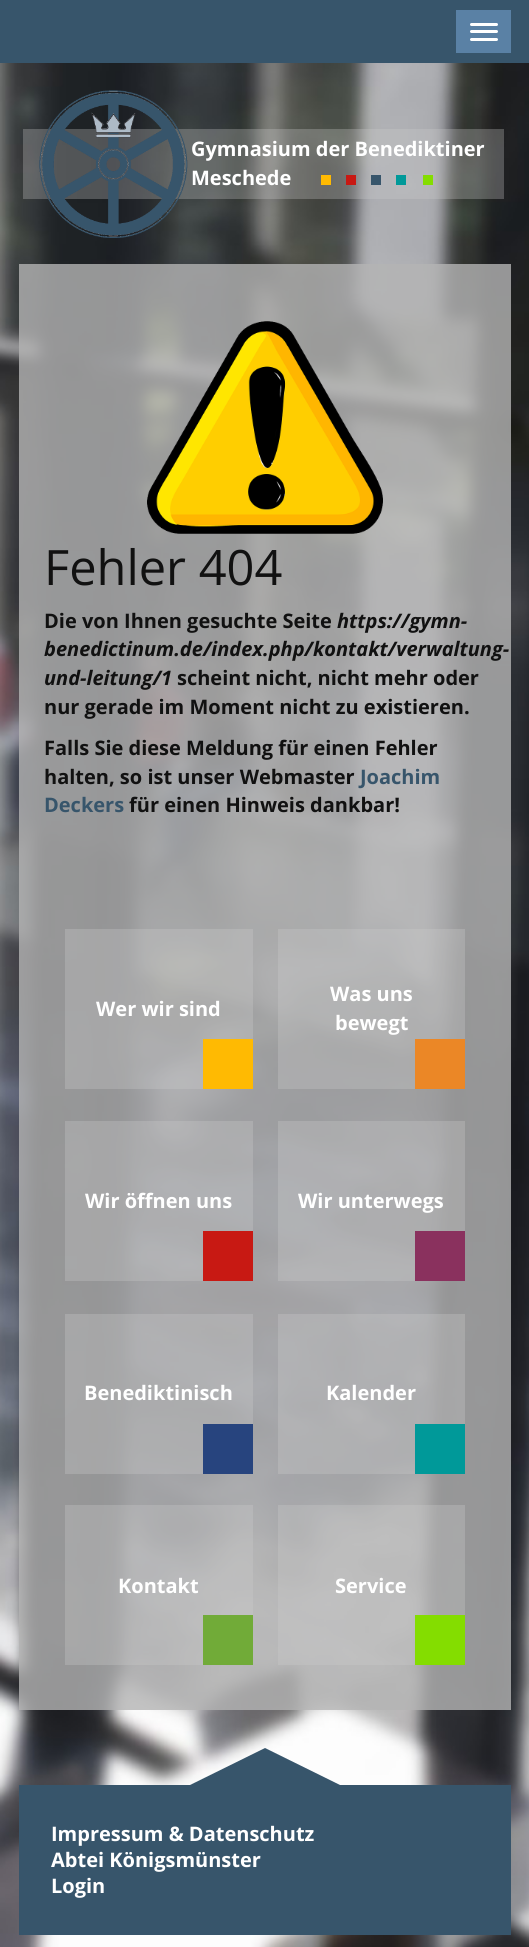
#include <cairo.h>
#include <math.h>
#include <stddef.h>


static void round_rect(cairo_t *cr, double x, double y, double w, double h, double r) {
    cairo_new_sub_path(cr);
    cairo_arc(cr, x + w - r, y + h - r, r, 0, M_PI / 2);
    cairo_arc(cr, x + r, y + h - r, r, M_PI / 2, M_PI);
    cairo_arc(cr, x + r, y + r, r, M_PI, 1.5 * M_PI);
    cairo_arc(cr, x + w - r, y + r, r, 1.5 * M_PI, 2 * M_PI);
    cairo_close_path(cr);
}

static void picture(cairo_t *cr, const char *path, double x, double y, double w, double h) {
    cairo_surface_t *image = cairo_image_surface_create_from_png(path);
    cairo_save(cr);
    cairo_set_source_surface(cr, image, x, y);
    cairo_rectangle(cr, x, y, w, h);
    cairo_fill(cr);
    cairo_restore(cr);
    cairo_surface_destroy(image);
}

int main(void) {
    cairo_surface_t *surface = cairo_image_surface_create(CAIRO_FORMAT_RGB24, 529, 1947);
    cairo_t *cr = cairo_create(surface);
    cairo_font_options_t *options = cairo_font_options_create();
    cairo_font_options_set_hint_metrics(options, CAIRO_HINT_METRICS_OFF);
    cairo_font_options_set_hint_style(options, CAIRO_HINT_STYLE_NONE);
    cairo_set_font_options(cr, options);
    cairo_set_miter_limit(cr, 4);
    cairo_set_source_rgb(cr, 1, 1, 1);
    cairo_paint(cr);
    picture(cr, "img1.png", 0, 63, 529, 1884);
    cairo_set_source_rgb(cr, 0.216, 0.333, 0.42);
    cairo_rectangle(cr, 0, 0, 529, 63);
    cairo_fill(cr);
    cairo_set_source_rgb(cr, 0.353, 0.506, 0.647);
    cairo_rectangle(cr, 456, 10, 55, 43);
    cairo_fill(cr);
    cairo_set_source_rgb(cr, 1, 1, 1);
    round_rect(cr, 470, 23, 28, 3, 1.5);
    cairo_fill(cr);
    round_rect(cr, 470, 30, 28, 3, 1.5);
    cairo_fill(cr);
    round_rect(cr, 470, 38, 28, 3, 1.5);
    cairo_fill(cr);
    cairo_set_source_rgba(cr, 0.804, 0.804, 0.804, 0.3);
    cairo_rectangle(cr, 23, 129, 481, 70);
    cairo_fill(cr);
    picture(cr, "img2.png", 39, 90, 149, 148);
    cairo_select_font_face(cr, "Open Sans", CAIRO_FONT_SLANT_NORMAL, CAIRO_FONT_WEIGHT_BOLD);
    cairo_set_font_size(cr, 20);
    cairo_set_source_rgb(cr, 1, 1, 1);
    cairo_move_to(cr, 191, 156);
    cairo_show_text(cr, "Gymnasium der Benediktiner");
    cairo_move_to(cr, 191, 185);
    cairo_show_text(cr, "Meschede");
    cairo_set_source_rgb(cr, 1, 0.729, 0.008);
    cairo_rectangle(cr, 321, 175, 10, 10);
    cairo_fill(cr);
    cairo_set_source_rgb(cr, 0.784, 0.098, 0.078);
    cairo_rectangle(cr, 346, 175, 10, 10);
    cairo_fill(cr);
    cairo_set_source_rgb(cr, 0.216, 0.333, 0.42);
    cairo_rectangle(cr, 371, 175, 10, 10);
    cairo_fill(cr);
    cairo_set_source_rgb(cr, 0, 0.6, 0.6);
    cairo_rectangle(cr, 396, 175, 10, 10);
    cairo_fill(cr);
    cairo_set_source_rgb(cr, 0.518, 0.867, 0);
    cairo_rectangle(cr, 423, 175, 10, 10);
    cairo_fill(cr);
    cairo_set_source_rgba(cr, 0.706, 0.706, 0.706, 0.8);
    cairo_rectangle(cr, 19, 264, 492, 1446);
    cairo_fill(cr);
    picture(cr, "img3.png", 147, 321, 236, 213);
    cairo_select_font_face(cr, "Open Sans", CAIRO_FONT_SLANT_NORMAL, CAIRO_FONT_WEIGHT_NORMAL);
    cairo_set_font_size(cr, 48.75);
    cairo_set_source_rgb(cr, 0.067, 0.067, 0.067);
    cairo_move_to(cr, 44, 585);
    cairo_show_text(cr, "Fehler 404");
    cairo_select_font_face(cr, "Open Sans", CAIRO_FONT_SLANT_NORMAL, CAIRO_FONT_WEIGHT_BOLD);
    cairo_set_font_size(cr, 20);
    cairo_move_to(cr, 44, 628);
    cairo_show_text(cr, "Die von Ihnen gesuchte Seite");
    cairo_select_font_face(cr, "Open Sans", CAIRO_FONT_SLANT_ITALIC, CAIRO_FONT_WEIGHT_BOLD);
    cairo_move_to(cr, 337, 628);
    cairo_show_text(cr, "https://gymn-");
    cairo_move_to(cr, 44, 656);
    cairo_show_text(cr, "benedictinum.de/index.php/kontakt/verwaltung-");
    cairo_move_to(cr, 44, 685);
    cairo_show_text(cr, "und-leitung/1");
    cairo_select_font_face(cr, "Open Sans", CAIRO_FONT_SLANT_NORMAL, CAIRO_FONT_WEIGHT_BOLD);
    cairo_move_to(cr, 177, 685);
    cairo_show_text(cr, "scheint nicht, nicht mehr oder");
    cairo_move_to(cr, 44, 714);
    cairo_show_text(cr, "nur gerade im Moment nicht zu existieren.");
    cairo_move_to(cr, 44, 755);
    cairo_show_text(cr, "Falls Sie diese Meldung für einen Fehler");
    cairo_move_to(cr, 44, 784);
    cairo_show_text(cr, "halten, so ist unser Webmaster");
    cairo_set_source_rgb(cr, 0.216, 0.333, 0.42);
    cairo_move_to(cr, 360, 784);
    cairo_show_text(cr, "Joachim");
    cairo_move_to(cr, 44, 812);
    cairo_show_text(cr, "Deckers");
    cairo_set_source_rgb(cr, 0.067, 0.067, 0.067);
    cairo_move_to(cr, 129, 812);
    cairo_show_text(cr, "für einen Hinweis dankbar!");
    cairo_set_source_rgba(cr, 0.804, 0.804, 0.804, 0.3);
    cairo_rectangle(cr, 65, 929, 188, 160);
    cairo_fill(cr);
    cairo_set_source_rgb(cr, 1, 1, 1);
    cairo_move_to(cr, 96, 1016);
    cairo_show_text(cr, "Wer wir sind");
    cairo_set_source_rgb(cr, 1, 0.729, 0.008);
    cairo_rectangle(cr, 203, 1039, 50, 50);
    cairo_fill(cr);
    cairo_set_source_rgba(cr, 0.804, 0.804, 0.804, 0.3);
    cairo_rectangle(cr, 278, 929, 187, 160);
    cairo_fill(cr);
    cairo_set_source_rgb(cr, 1, 1, 1);
    cairo_move_to(cr, 330, 1001);
    cairo_show_text(cr, "Was uns");
    cairo_move_to(cr, 335, 1030);
    cairo_show_text(cr, "bewegt");
    cairo_set_source_rgb(cr, 0.918, 0.529, 0.149);
    cairo_rectangle(cr, 415, 1039, 50, 50);
    cairo_fill(cr);
    cairo_set_source_rgba(cr, 0.804, 0.804, 0.804, 0.3);
    cairo_rectangle(cr, 65, 1121, 188, 160);
    cairo_fill(cr);
    cairo_set_source_rgb(cr, 1, 1, 1);
    cairo_move_to(cr, 85, 1208);
    cairo_show_text(cr, "Wir öffnen uns");
    cairo_set_source_rgb(cr, 0.784, 0.098, 0.078);
    cairo_rectangle(cr, 203, 1231, 50, 50);
    cairo_fill(cr);
    cairo_set_source_rgba(cr, 0.804, 0.804, 0.804, 0.3);
    cairo_rectangle(cr, 278, 1121, 187, 160);
    cairo_fill(cr);
    cairo_set_source_rgb(cr, 1, 1, 1);
    cairo_move_to(cr, 298, 1208);
    cairo_show_text(cr, "Wir unterwegs");
    cairo_set_source_rgb(cr, 0.541, 0.192, 0.369);
    cairo_rectangle(cr, 415, 1231, 50, 50);
    cairo_fill(cr);
    cairo_set_source_rgba(cr, 0.804, 0.804, 0.804, 0.3);
    cairo_rectangle(cr, 65, 1314, 188, 160);
    cairo_fill(cr);
    cairo_set_source_rgb(cr, 1, 1, 1);
    cairo_move_to(cr, 84, 1400);
    cairo_show_text(cr, "Benediktinisch");
    cairo_set_source_rgb(cr, 0.153, 0.267, 0.494);
    cairo_rectangle(cr, 203, 1424, 50, 50);
    cairo_fill(cr);
    cairo_set_source_rgba(cr, 0.804, 0.804, 0.804, 0.3);
    cairo_rectangle(cr, 278, 1314, 187, 160);
    cairo_fill(cr);
    cairo_set_source_rgb(cr, 1, 1, 1);
    cairo_move_to(cr, 326, 1400);
    cairo_show_text(cr, "Kalender");
    cairo_set_source_rgb(cr, 0, 0.6, 0.6);
    cairo_rectangle(cr, 415, 1424, 50, 50);
    cairo_fill(cr);
    cairo_set_source_rgba(cr, 0.804, 0.804, 0.804, 0.3);
    cairo_rectangle(cr, 65, 1505, 188, 160);
    cairo_fill(cr);
    cairo_set_source_rgb(cr, 1, 1, 1);
    cairo_move_to(cr, 118, 1593);
    cairo_show_text(cr, "Kontakt");
    cairo_set_source_rgb(cr, 0.443, 0.671, 0.22);
    cairo_rectangle(cr, 203, 1615, 50, 50);
    cairo_fill(cr);
    cairo_set_source_rgba(cr, 0.804, 0.804, 0.804, 0.3);
    cairo_rectangle(cr, 278, 1505, 187, 160);
    cairo_fill(cr);
    cairo_set_source_rgb(cr, 1, 1, 1);
    cairo_move_to(cr, 335, 1593);
    cairo_show_text(cr, "Service");
    cairo_set_source_rgb(cr, 0.518, 0.867, 0);
    cairo_rectangle(cr, 415, 1615, 50, 50);
    cairo_fill(cr);
    cairo_set_source_rgb(cr, 0.216, 0.333, 0.42);
    cairo_new_path(cr);
    cairo_move_to(cr, 340, 1785);
    cairo_line_to(cr, 190, 1785);
    cairo_line_to(cr, 265, 1748);
    cairo_close_path(cr);
    cairo_fill(cr);
    cairo_rectangle(cr, 19, 1785, 492, 150);
    cairo_fill(cr);
    cairo_set_source_rgb(cr, 1, 1, 1);
    cairo_move_to(cr, 51, 1841);
    cairo_show_text(cr, "Impressum & Datenschutz");
    cairo_move_to(cr, 51, 1867);
    cairo_show_text(cr, "Abtei Königsmünster");
    cairo_move_to(cr, 51, 1893);
    cairo_show_text(cr, "Login");
    cairo_surface_write_to_png(surface, "page.png");
    cairo_font_options_destroy(options);
    cairo_destroy(cr);
    cairo_surface_destroy(surface);
    return 0;
}
